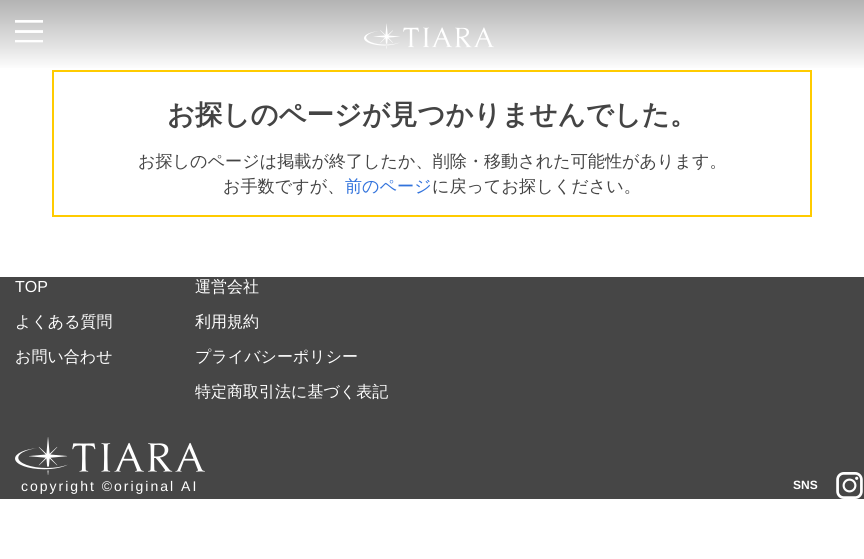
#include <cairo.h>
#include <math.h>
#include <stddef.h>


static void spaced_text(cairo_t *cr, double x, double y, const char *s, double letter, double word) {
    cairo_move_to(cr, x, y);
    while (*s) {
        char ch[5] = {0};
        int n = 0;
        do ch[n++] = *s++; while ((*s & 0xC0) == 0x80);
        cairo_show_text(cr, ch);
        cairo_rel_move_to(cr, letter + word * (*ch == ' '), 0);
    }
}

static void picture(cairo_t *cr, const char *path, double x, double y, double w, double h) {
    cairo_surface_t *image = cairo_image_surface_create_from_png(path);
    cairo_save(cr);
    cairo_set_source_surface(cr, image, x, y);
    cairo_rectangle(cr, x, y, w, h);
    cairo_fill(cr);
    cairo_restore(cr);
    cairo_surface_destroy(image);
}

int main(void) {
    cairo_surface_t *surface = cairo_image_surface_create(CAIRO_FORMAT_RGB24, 864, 559);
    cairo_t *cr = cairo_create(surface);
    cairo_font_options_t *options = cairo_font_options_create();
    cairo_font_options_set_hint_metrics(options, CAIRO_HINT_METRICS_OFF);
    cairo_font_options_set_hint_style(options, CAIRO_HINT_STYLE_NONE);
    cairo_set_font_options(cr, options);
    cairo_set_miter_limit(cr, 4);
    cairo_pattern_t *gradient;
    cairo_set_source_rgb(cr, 1, 1, 1);
    cairo_paint(cr);
    gradient = cairo_pattern_create_linear(432, 0, 432, 70);
    cairo_pattern_add_color_stop_rgba(gradient, 0, 0.702, 0.702, 0.702, 1);
    cairo_pattern_add_color_stop_rgba(gradient, 0.7, 0.902, 0.902, 0.902, 1);
    cairo_pattern_add_color_stop_rgba(gradient, 1, 1, 1, 1, 1);
    cairo_set_source(cr, gradient);
    cairo_pattern_destroy(gradient);
    cairo_rectangle(cr, 0, 0, 864, 68);
    cairo_fill(cr);
    picture(cr, "img1.png", 15, 20, 28, 23);
    picture(cr, "img2.png", 364, 23, 130, 26);
    cairo_rectangle(cr, 53, 71, 758, 145);
    cairo_set_source_rgb(cr, 1, 0.796, 0);
    cairo_stroke(cr);
    cairo_select_font_face(cr, "WenQuanYi Zen Hei", CAIRO_FONT_SLANT_NORMAL, CAIRO_FONT_WEIGHT_BOLD);
    cairo_set_font_size(cr, 27.4);
    cairo_set_source_rgb(cr, 0.267, 0.267, 0.267);
    cairo_move_to(cr, 167, 124);
    cairo_show_text(cr, "お探しのページが見つかりませんでした。");
    cairo_select_font_face(cr, "WenQuanYi Zen Hei Medium", CAIRO_FONT_SLANT_NORMAL, CAIRO_FONT_WEIGHT_NORMAL);
    cairo_set_font_size(cr, 17.1);
    cairo_move_to(cr, 138, 167);
    cairo_show_text(cr, "お探しのページは掲載が終了したか、削除・移動された可能性があります。");
    cairo_move_to(cr, 223, 192);
    cairo_show_text(cr, "お手数ですが、");
    cairo_set_source_rgb(cr, 0.196, 0.451, 0.863);
    cairo_move_to(cr, 345, 192);
    cairo_show_text(cr, "前のページ");
    cairo_set_source_rgb(cr, 0.267, 0.267, 0.267);
    cairo_move_to(cr, 432, 192);
    cairo_show_text(cr, "に戻ってお探しください。");
    cairo_set_source_rgb(cr, 0.275, 0.275, 0.275);
    cairo_rectangle(cr, 0, 277, 864, 222);
    cairo_fill(cr);
    cairo_select_font_face(cr, "Liberation Sans", CAIRO_FONT_SLANT_NORMAL, CAIRO_FONT_WEIGHT_NORMAL);
    cairo_set_font_size(cr, 16);
    cairo_set_source_rgb(cr, 1, 1, 1);
    cairo_move_to(cr, 15, 292);
    cairo_show_text(cr, "TOP");
    cairo_select_font_face(cr, "WenQuanYi Zen Hei Medium", CAIRO_FONT_SLANT_NORMAL, CAIRO_FONT_WEIGHT_NORMAL);
    cairo_move_to(cr, 195, 292);
    cairo_show_text(cr, "運営会社");
    cairo_move_to(cr, 15, 327);
    cairo_show_text(cr, "よくある質問");
    cairo_move_to(cr, 195, 327);
    cairo_show_text(cr, "利用規約");
    cairo_move_to(cr, 15, 362);
    cairo_show_text(cr, "お問い合わせ");
    cairo_move_to(cr, 195, 362);
    cairo_show_text(cr, "プライバシーポリシー");
    cairo_move_to(cr, 195, 397);
    cairo_show_text(cr, "特定商取引法に基づく表記");
    picture(cr, "img3.png", 15, 437, 190, 38);
    cairo_select_font_face(cr, "Liberation Sans", CAIRO_FONT_SLANT_NORMAL, CAIRO_FONT_WEIGHT_NORMAL);
    cairo_set_font_size(cr, 14);
    spaced_text(cr, 21, 491, "copyright ©original AI", 2, 0);
    cairo_select_font_face(cr, "Liberation Sans", CAIRO_FONT_SLANT_NORMAL, CAIRO_FONT_WEIGHT_BOLD);
    cairo_set_font_size(cr, 12);
    cairo_move_to(cr, 793, 489);
    cairo_show_text(cr, "SNS");
    picture(cr, "img4.png", 836, 472, 27, 27);
    cairo_surface_write_to_png(surface, "page.png");
    cairo_font_options_destroy(options);
    cairo_destroy(cr);
    cairo_surface_destroy(surface);
    return 0;
}
